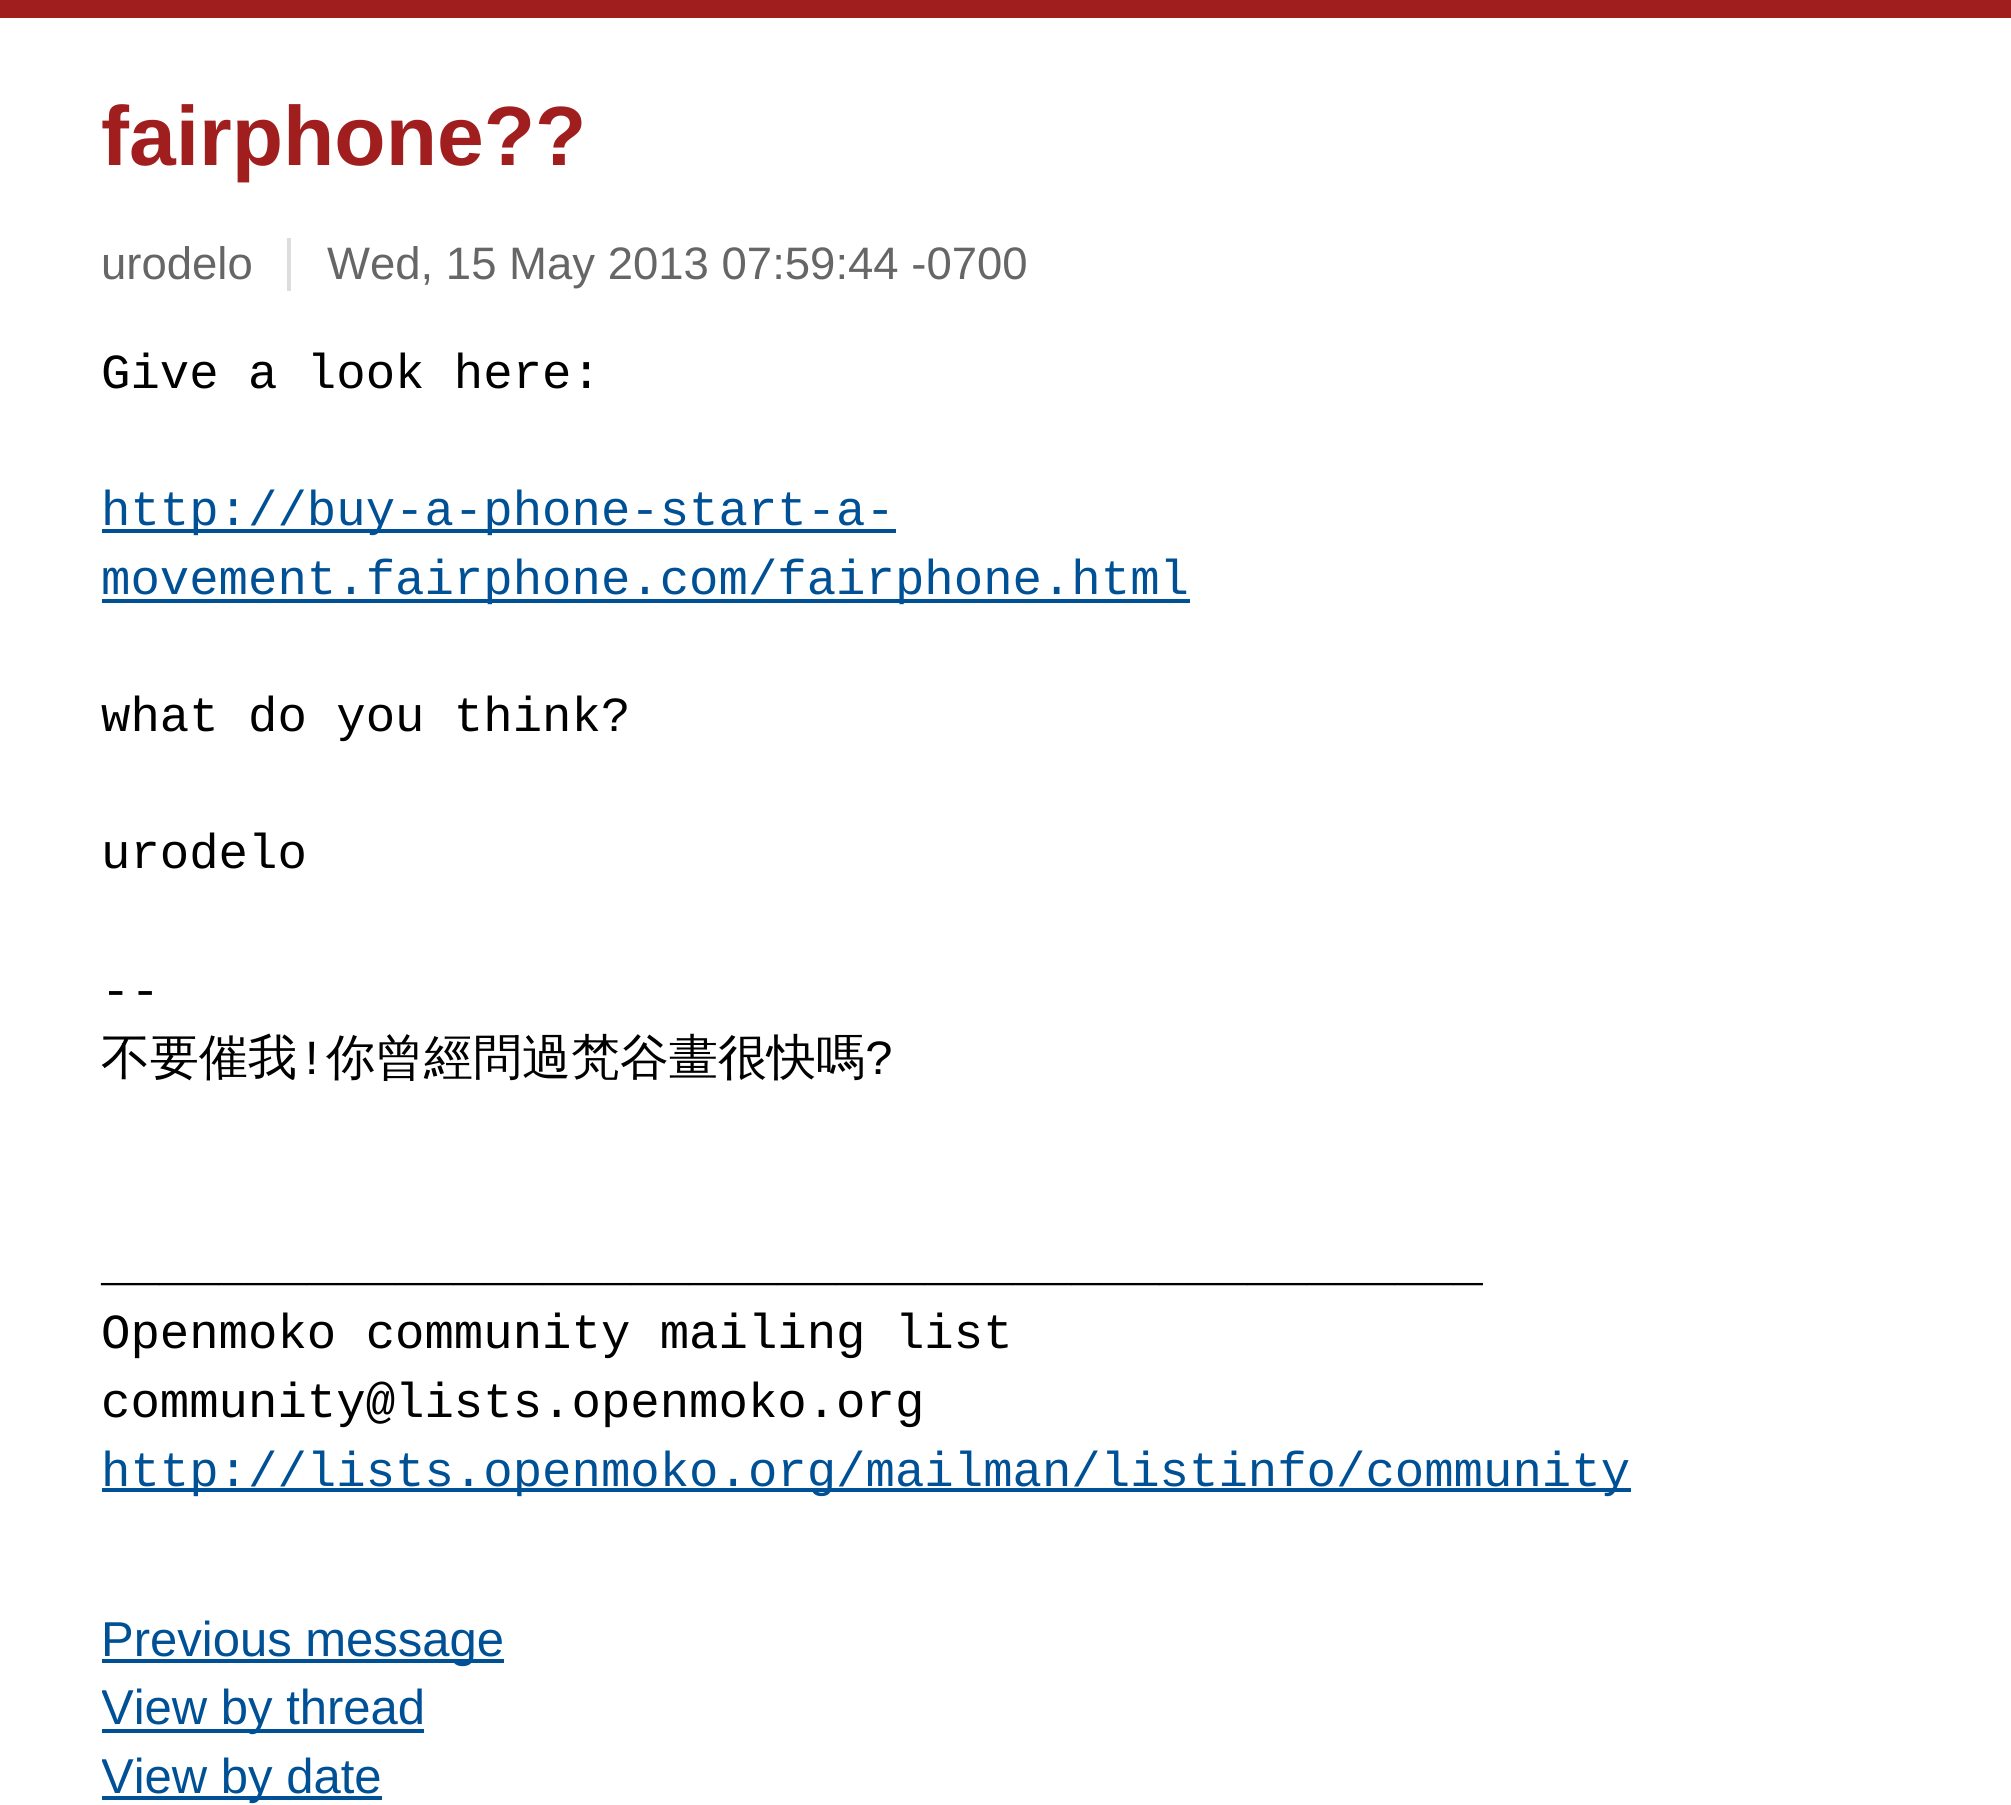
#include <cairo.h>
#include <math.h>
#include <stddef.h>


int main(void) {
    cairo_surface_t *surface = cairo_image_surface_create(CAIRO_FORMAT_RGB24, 2011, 1805);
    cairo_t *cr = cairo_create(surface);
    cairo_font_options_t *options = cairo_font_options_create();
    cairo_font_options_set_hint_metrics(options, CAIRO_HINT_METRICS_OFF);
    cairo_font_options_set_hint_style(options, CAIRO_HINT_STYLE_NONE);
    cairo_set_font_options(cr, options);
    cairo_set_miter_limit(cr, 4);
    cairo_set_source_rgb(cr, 1, 1, 1);
    cairo_paint(cr);
    cairo_set_source_rgb(cr, 0.627, 0.118, 0.118);
    cairo_rectangle(cr, 0, 0, 2011, 18);
    cairo_fill(cr);
    cairo_select_font_face(cr, "Liberation Sans", CAIRO_FONT_SLANT_NORMAL, CAIRO_FONT_WEIGHT_BOLD);
    cairo_set_font_size(cr, 84);
    cairo_move_to(cr, 101, 165);
    cairo_show_text(cr, "fairphone?\077");
    cairo_select_font_face(cr, "Liberation Sans", CAIRO_FONT_SLANT_NORMAL, CAIRO_FONT_WEIGHT_NORMAL);
    cairo_set_font_size(cr, 45.5);
    cairo_set_source_rgb(cr, 0.4, 0.4, 0.4);
    cairo_move_to(cr, 101, 279);
    cairo_show_text(cr, "urodelo");
    cairo_set_source_rgb(cr, 0.867, 0.867, 0.867);
    cairo_rectangle(cr, 287, 238, 4, 53);
    cairo_fill(cr);
    cairo_set_source_rgb(cr, 0.4, 0.4, 0.4);
    cairo_move_to(cr, 327, 279);
    cairo_show_text(cr, "Wed, 15 May 2013 07:59:44 -0700");
    cairo_select_font_face(cr, "Liberation Mono", CAIRO_FONT_SLANT_NORMAL, CAIRO_FONT_WEIGHT_NORMAL);
    cairo_set_font_size(cr, 49);
    cairo_set_source_rgb(cr, 0, 0, 0);
    cairo_move_to(cr, 101, 388);
    cairo_show_text(cr, "Give a look here:");
    cairo_set_source_rgb(cr, 0, 0.314, 0.588);
    cairo_rectangle(cr, 102, 529, 794, 4);
    cairo_fill(cr);
    cairo_move_to(cr, 101, 525);
    cairo_show_text(cr, "http://buy-a-phone-start-a-");
    cairo_rectangle(cr, 102, 599, 1088, 4);
    cairo_fill(cr);
    cairo_move_to(cr, 101, 594);
    cairo_show_text(cr, "movement.fairphone.com/fairphone.html");
    cairo_set_source_rgb(cr, 0, 0, 0);
    cairo_move_to(cr, 101, 731);
    cairo_show_text(cr, "what do you think?");
    cairo_move_to(cr, 101, 868);
    cairo_show_text(cr, "urodelo");
    cairo_move_to(cr, 101, 1006);
    cairo_show_text(cr, "--");
    cairo_select_font_face(cr, "WenQuanYi Zen Hei Medium", CAIRO_FONT_SLANT_NORMAL, CAIRO_FONT_WEIGHT_NORMAL);
    cairo_move_to(cr, 101, 1074);
    cairo_show_text(cr, "不要催我");
    cairo_select_font_face(cr, "Liberation Mono", CAIRO_FONT_SLANT_NORMAL, CAIRO_FONT_WEIGHT_NORMAL);
    cairo_move_to(cr, 297, 1074);
    cairo_show_text(cr, "!");
    cairo_select_font_face(cr, "WenQuanYi Zen Hei Medium", CAIRO_FONT_SLANT_NORMAL, CAIRO_FONT_WEIGHT_NORMAL);
    cairo_move_to(cr, 326, 1074);
    cairo_show_text(cr, "你曾經問過梵谷畫很快嗎");
    cairo_select_font_face(cr, "Liberation Mono", CAIRO_FONT_SLANT_NORMAL, CAIRO_FONT_WEIGHT_NORMAL);
    cairo_move_to(cr, 865, 1074);
    cairo_show_text(cr, "?");
    cairo_move_to(cr, 101, 1280);
    cairo_show_text(cr, "_______________________________________________");
    cairo_move_to(cr, 101, 1348);
    cairo_show_text(cr, "Openmoko community mailing list");
    cairo_move_to(cr, 101, 1417);
    cairo_show_text(cr, "community@lists.openmoko.org");
    cairo_set_source_rgb(cr, 0, 0.314, 0.588);
    cairo_rectangle(cr, 102, 1488, 1529, 4);
    cairo_fill(cr);
    cairo_move_to(cr, 101, 1486);
    cairo_show_text(cr, "http://lists.openmoko.org/mailman/listinfo/community");
    cairo_rectangle(cr, 102, 1659, 402, 4);
    cairo_fill(cr);
    cairo_select_font_face(cr, "Liberation Sans", CAIRO_FONT_SLANT_NORMAL, CAIRO_FONT_WEIGHT_NORMAL);
    cairo_move_to(cr, 101, 1656);
    cairo_show_text(cr, "Previous message");
    cairo_rectangle(cr, 102, 1729, 322, 4);
    cairo_fill(cr);
    cairo_save(cr);
    cairo_rectangle(cr, 102, 1607, 1809, 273);
    cairo_clip(cr);
    cairo_move_to(cr, 101, 1724);
    cairo_show_text(cr, "View by thread");
    cairo_restore(cr);
    cairo_rectangle(cr, 102, 1796, 280, 4);
    cairo_fill(cr);
    cairo_save(cr);
    cairo_rectangle(cr, 102, 1607, 1809, 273);
    cairo_clip(cr);
    cairo_move_to(cr, 101, 1793);
    cairo_show_text(cr, "View by date");
    cairo_restore(cr);
    cairo_surface_write_to_png(surface, "page.png");
    cairo_font_options_destroy(options);
    cairo_destroy(cr);
    cairo_surface_destroy(surface);
    return 0;
}
